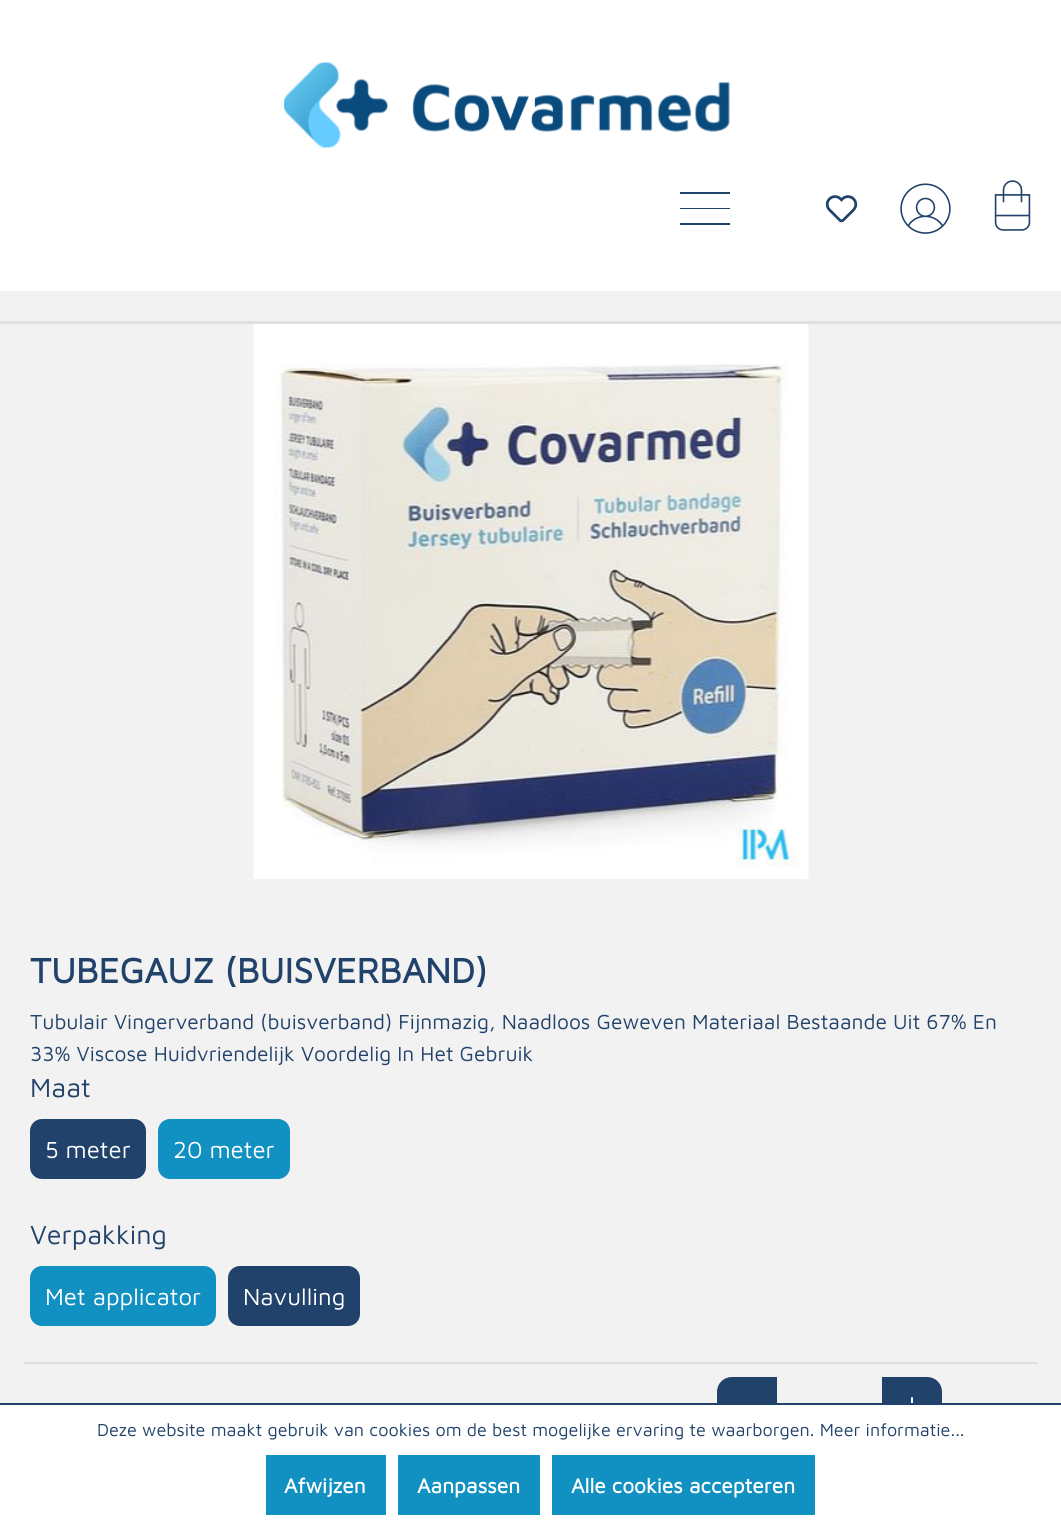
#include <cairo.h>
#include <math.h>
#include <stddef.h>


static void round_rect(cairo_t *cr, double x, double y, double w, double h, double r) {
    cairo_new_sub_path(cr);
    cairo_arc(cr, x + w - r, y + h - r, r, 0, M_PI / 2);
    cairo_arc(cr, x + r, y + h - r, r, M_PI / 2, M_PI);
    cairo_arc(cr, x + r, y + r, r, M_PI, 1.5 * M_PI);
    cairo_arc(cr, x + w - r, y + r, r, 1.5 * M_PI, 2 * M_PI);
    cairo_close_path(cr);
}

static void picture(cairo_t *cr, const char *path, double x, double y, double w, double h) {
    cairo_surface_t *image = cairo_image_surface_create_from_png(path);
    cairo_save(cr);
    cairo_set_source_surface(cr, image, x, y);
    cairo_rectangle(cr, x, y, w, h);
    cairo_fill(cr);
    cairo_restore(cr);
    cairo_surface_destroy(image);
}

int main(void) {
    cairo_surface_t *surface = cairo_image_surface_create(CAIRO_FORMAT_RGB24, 1061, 1527);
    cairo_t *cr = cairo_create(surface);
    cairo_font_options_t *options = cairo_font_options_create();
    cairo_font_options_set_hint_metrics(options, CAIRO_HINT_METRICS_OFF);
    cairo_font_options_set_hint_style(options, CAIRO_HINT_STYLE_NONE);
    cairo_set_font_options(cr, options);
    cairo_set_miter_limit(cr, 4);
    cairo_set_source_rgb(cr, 0.949, 0.949, 0.949);
    cairo_paint(cr);
    cairo_set_source_rgb(cr, 1, 1, 1);
    cairo_rectangle(cr, 0, 0, 1061, 291);
    cairo_fill(cr);
    picture(cr, "img1.png", 284, 62, 450, 86);
    cairo_set_source_rgb(cr, 0.129, 0.259, 0.416);
    cairo_rectangle(cr, 680, 192, 50, 2);
    cairo_fill(cr);
    cairo_rectangle(cr, 680, 208, 50, 1);
    cairo_fill(cr);
    cairo_rectangle(cr, 680, 223, 50, 2);
    cairo_fill(cr);
    picture(cr, "img2.png", 825, 195, 33, 28);
    picture(cr, "img3.png", 900, 183, 51, 51);
    picture(cr, "img4.png", 994, 180, 37, 51);
    cairo_set_source_rgb(cr, 0.878, 0.878, 0.878);
    cairo_rectangle(cr, 0, 321, 1061, 3);
    cairo_fill(cr);
    picture(cr, "img5.png", 253, 324, 556, 555);
    cairo_select_font_face(cr, "Maven Pro", CAIRO_FONT_SLANT_NORMAL, CAIRO_FONT_WEIGHT_BOLD);
    cairo_set_font_size(cr, 36);
    cairo_set_source_rgb(cr, 0.129, 0.259, 0.416);
    cairo_move_to(cr, 30, 983);
    cairo_show_text(cr, "TUBEGAUZ (BUISVERBAND)");
    cairo_select_font_face(cr, "Maven Pro", CAIRO_FONT_SLANT_NORMAL, CAIRO_FONT_WEIGHT_NORMAL);
    cairo_set_font_size(cr, 21);
    cairo_move_to(cr, 30, 1029);
    cairo_show_text(cr, "Tubulair Vingerverband (buisverband) Fijnmazig, Naadloos Geweven Materiaal Bestaande Uit 67% En");
    cairo_move_to(cr, 30, 1061);
    cairo_show_text(cr, "33% Viscose Huidvriendelijk Voordelig In Het Gebruik");
    cairo_set_font_size(cr, 27);
    cairo_move_to(cr, 30, 1097);
    cairo_show_text(cr, "Maat");
    round_rect(cr, 31.5, 1120.5, 113, 57, 10.5);
    cairo_fill_preserve(cr);
    cairo_set_line_width(cr, 3);
    cairo_stroke(cr);
    cairo_set_font_size(cr, 24);
    cairo_set_source_rgb(cr, 1, 1, 1);
    cairo_move_to(cr, 45, 1158);
    cairo_show_text(cr, "5 meter");
    cairo_set_source_rgb(cr, 0.067, 0.569, 0.757);
    round_rect(cr, 159.5, 1120.5, 129, 57, 10.5);
    cairo_fill_preserve(cr);
    cairo_stroke(cr);
    cairo_set_source_rgb(cr, 1, 1, 1);
    cairo_move_to(cr, 173, 1158);
    cairo_show_text(cr, "20 meter");
    cairo_set_font_size(cr, 27);
    cairo_set_source_rgb(cr, 0.129, 0.259, 0.416);
    cairo_move_to(cr, 30, 1244);
    cairo_show_text(cr, "Verpakking");
    cairo_set_source_rgb(cr, 0.067, 0.569, 0.757);
    round_rect(cr, 31.5, 1267.5, 183, 57, 10.5);
    cairo_fill_preserve(cr);
    cairo_stroke(cr);
    cairo_set_font_size(cr, 24);
    cairo_set_source_rgb(cr, 1, 1, 1);
    cairo_move_to(cr, 45, 1305);
    cairo_show_text(cr, "Met applicator");
    cairo_set_source_rgb(cr, 0.129, 0.259, 0.416);
    round_rect(cr, 229.5, 1267.5, 129, 57, 10.5);
    cairo_fill_preserve(cr);
    cairo_stroke(cr);
    cairo_set_source_rgb(cr, 1, 1, 1);
    cairo_move_to(cr, 243, 1305);
    cairo_show_text(cr, "Navulling");
    cairo_set_source_rgb(cr, 0.878, 0.878, 0.878);
    cairo_rectangle(cr, 24, 1362, 1014, 2);
    cairo_fill(cr);
    cairo_set_source_rgb(cr, 0.129, 0.259, 0.416);
    cairo_new_path(cr);
    cairo_move_to(cr, 732, 1377);
    cairo_line_to(cr, 777, 1377);
    cairo_line_to(cr, 777, 1437);
    cairo_line_to(cr, 732, 1437);
    cairo_curve_to(cr, 723.5, 1437, 717, 1430.5, 717, 1422);
    cairo_line_to(cr, 717, 1392);
    cairo_curve_to(cr, 717, 1383.5, 723.5, 1377, 732, 1377);
    cairo_close_path(cr);
    cairo_fill(cr);
    cairo_new_path(cr);
    cairo_move_to(cr, 882, 1377);
    cairo_line_to(cr, 927, 1377);
    cairo_curve_to(cr, 935.5, 1377, 942, 1383.5, 942, 1392);
    cairo_line_to(cr, 942, 1422);
    cairo_curve_to(cr, 942, 1430.5, 935.5, 1437, 927, 1437);
    cairo_line_to(cr, 882, 1437);
    cairo_close_path(cr);
    cairo_fill(cr);
    picture(cr, "img6.png", 911, 1397, 2, 6);
    cairo_set_source_rgb(cr, 1, 1, 1);
    cairo_rectangle(cr, 0, 1405, 1061, 122);
    cairo_fill(cr);
    cairo_set_source_rgb(cr, 0.129, 0.259, 0.416);
    cairo_rectangle(cr, 0, 1403, 1061, 2);
    cairo_fill(cr);
    cairo_set_font_size(cr, 18);
    cairo_move_to(cr, 97, 1436);
    cairo_show_text(cr, "Deze website maakt gebruik van cookies om de best mogelijke ervaring te waarborgen. Meer informatie...");
    cairo_set_source_rgb(cr, 0.067, 0.569, 0.757);
    cairo_rectangle(cr, 266, 1455, 120, 60);
    cairo_fill(cr);
    cairo_select_font_face(cr, "Maven Pro", CAIRO_FONT_SLANT_NORMAL, CAIRO_FONT_WEIGHT_BOLD);
    cairo_set_font_size(cr, 21);
    cairo_set_source_rgb(cr, 1, 1, 1);
    cairo_move_to(cr, 284, 1493);
    cairo_show_text(cr, "Afwijzen");
    cairo_set_source_rgb(cr, 0.067, 0.569, 0.757);
    cairo_rectangle(cr, 398, 1455, 142, 60);
    cairo_fill(cr);
    cairo_set_source_rgb(cr, 1, 1, 1);
    cairo_move_to(cr, 417, 1493);
    cairo_show_text(cr, "Aanpassen");
    cairo_set_source_rgb(cr, 0.067, 0.569, 0.757);
    cairo_rectangle(cr, 552, 1455, 263, 60);
    cairo_fill(cr);
    cairo_set_source_rgb(cr, 1, 1, 1);
    cairo_move_to(cr, 571, 1493);
    cairo_show_text(cr, "Alle cookies accepteren");
    cairo_surface_write_to_png(surface, "page.png");
    cairo_font_options_destroy(options);
    cairo_destroy(cr);
    cairo_surface_destroy(surface);
    return 0;
}
